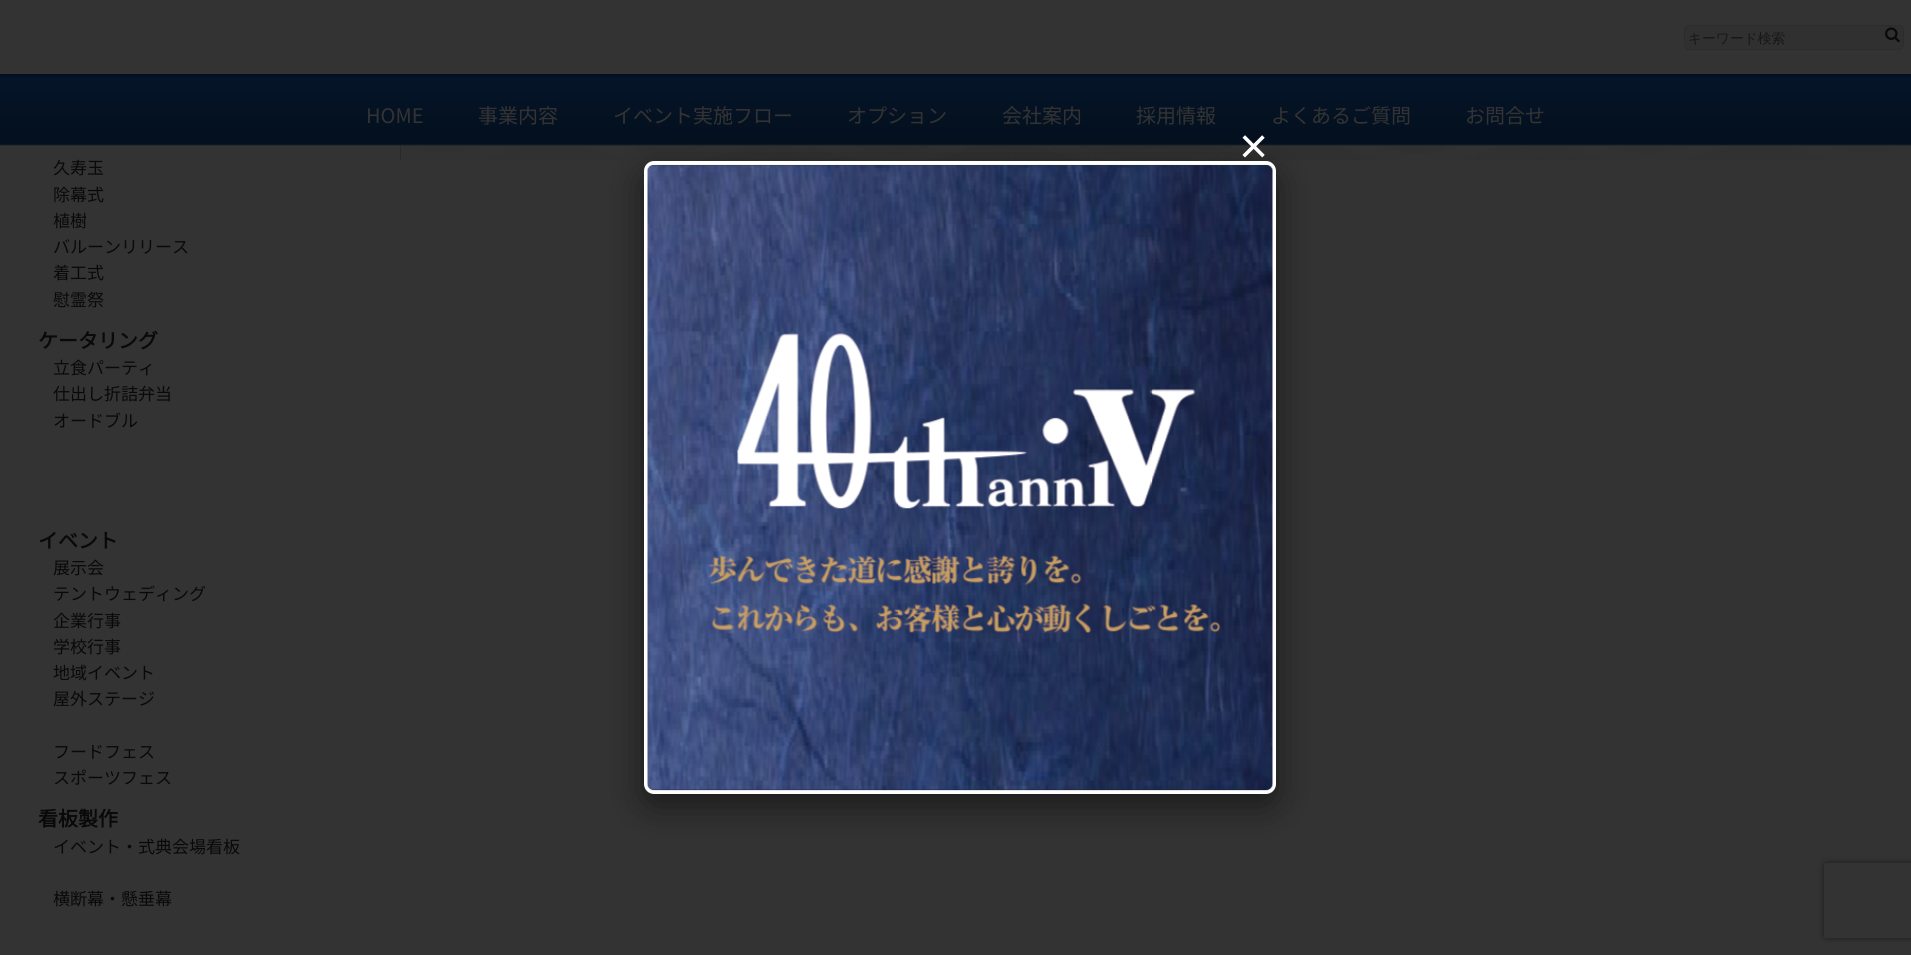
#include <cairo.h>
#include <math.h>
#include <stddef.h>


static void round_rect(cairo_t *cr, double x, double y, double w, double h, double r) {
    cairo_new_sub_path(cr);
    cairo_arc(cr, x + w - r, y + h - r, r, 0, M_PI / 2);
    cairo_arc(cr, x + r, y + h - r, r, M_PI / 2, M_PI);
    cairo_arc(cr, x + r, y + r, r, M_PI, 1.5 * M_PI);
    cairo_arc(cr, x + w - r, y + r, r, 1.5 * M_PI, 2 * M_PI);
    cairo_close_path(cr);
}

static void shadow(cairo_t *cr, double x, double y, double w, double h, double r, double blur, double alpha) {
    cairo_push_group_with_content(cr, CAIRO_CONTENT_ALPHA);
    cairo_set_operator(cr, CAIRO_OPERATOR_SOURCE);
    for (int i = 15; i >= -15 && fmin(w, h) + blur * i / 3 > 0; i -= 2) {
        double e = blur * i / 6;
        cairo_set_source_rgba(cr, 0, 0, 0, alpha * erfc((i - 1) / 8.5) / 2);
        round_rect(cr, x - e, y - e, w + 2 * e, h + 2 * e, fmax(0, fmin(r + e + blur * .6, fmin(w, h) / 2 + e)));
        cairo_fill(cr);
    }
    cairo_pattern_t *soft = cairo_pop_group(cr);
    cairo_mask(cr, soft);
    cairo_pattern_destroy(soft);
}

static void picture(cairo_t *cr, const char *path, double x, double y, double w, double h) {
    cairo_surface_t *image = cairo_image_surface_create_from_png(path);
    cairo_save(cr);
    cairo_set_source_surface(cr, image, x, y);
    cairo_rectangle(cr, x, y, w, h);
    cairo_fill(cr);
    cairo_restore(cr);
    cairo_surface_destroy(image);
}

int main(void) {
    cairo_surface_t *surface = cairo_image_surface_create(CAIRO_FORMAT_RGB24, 1911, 955);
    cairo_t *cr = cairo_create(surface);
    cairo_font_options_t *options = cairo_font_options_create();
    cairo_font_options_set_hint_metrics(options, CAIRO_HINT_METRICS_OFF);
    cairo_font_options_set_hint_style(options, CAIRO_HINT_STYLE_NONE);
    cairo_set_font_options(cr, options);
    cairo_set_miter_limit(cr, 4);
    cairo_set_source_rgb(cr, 0.2, 0.2, 0.2);
    cairo_paint(cr);
    cairo_set_source_rgb(cr, 0.188, 0.188, 0.188);
    round_rect(cr, 1684.5, 25.5, 219, 24, 4.5);
    cairo_fill_preserve(cr);
    cairo_set_source_rgb(cr, 0.173, 0.173, 0.173);
    cairo_set_line_width(cr, 1);
    cairo_stroke(cr);
    cairo_select_font_face(cr, "WenQuanYi Zen Hei Medium", CAIRO_FONT_SLANT_NORMAL, CAIRO_FONT_WEIGHT_NORMAL);
    cairo_set_font_size(cr, 13.75);
    cairo_set_source_rgb(cr, 0.09, 0.09, 0.09);
    cairo_move_to(cr, 1688, 43);
    cairo_show_text(cr, "キーワード検索");
    picture(cr, "img1.png", 1885, 27, 15, 16);
    picture(cr, "img4.png", 400, 145, 1511, 16);
    cairo_set_source_rgb(cr, 0.161, 0.161, 0.161);
    cairo_rectangle(cr, 400, 145, 1, 15);
    cairo_fill(cr);
    picture(cr, "img2.png", 0, 74, 1911, 72);
    cairo_select_font_face(cr, "Noto Sans JP Thin", CAIRO_FONT_SLANT_NORMAL, CAIRO_FONT_WEIGHT_NORMAL);
    cairo_set_font_size(cr, 20);
    cairo_set_source_rgb(cr, 0.2, 0.2, 0.2);
    cairo_move_to(cr, 366, 123);
    cairo_show_text(cr, "HOME");
    cairo_move_to(cr, 478, 123);
    cairo_show_text(cr, "事業内容");
    cairo_move_to(cr, 613, 123);
    cairo_show_text(cr, "イベント実施フロー");
    cairo_move_to(cr, 847, 123);
    cairo_show_text(cr, "オプション");
    cairo_move_to(cr, 1002, 123);
    cairo_show_text(cr, "会社案内");
    cairo_move_to(cr, 1136, 123);
    cairo_show_text(cr, "採用情報");
    cairo_move_to(cr, 1271, 123);
    cairo_show_text(cr, "よくあるご質問");
    cairo_move_to(cr, 1465, 123);
    cairo_show_text(cr, "お問合せ");
    cairo_set_source_rgb(cr, 0, 0, 0);
    shadow(cr, 644, 174, 632, 632, 10, 19, 0.5);
    cairo_select_font_face(cr, "Liberation Sans", CAIRO_FONT_SLANT_NORMAL, CAIRO_FONT_WEIGHT_NORMAL);
    cairo_set_font_size(cr, 50);
    cairo_set_source_rgb(cr, 1, 1, 1);
    cairo_move_to(cr, 1239, 163);
    cairo_show_text(cr, "×");
    round_rect(cr, 646, 163, 628, 629, 8);
    cairo_set_line_width(cr, 4);
    cairo_stroke(cr);
    picture(cr, "img3.png", 647, 164, 626, 627);
    cairo_select_font_face(cr, "Noto Sans JP Thin", CAIRO_FONT_SLANT_NORMAL, CAIRO_FONT_WEIGHT_NORMAL);
    cairo_set_font_size(cr, 17);
    cairo_set_source_rgb(cr, 0.039, 0.039, 0.039);
    cairo_move_to(cr, 53, 174);
    cairo_show_text(cr, "久寿玉");
    cairo_move_to(cr, 53, 201);
    cairo_show_text(cr, "除幕式");
    cairo_move_to(cr, 53, 227);
    cairo_show_text(cr, "植樹");
    cairo_move_to(cr, 53, 253);
    cairo_show_text(cr, "バルーンリリース");
    cairo_move_to(cr, 53, 279);
    cairo_show_text(cr, "着工式");
    cairo_move_to(cr, 53, 306);
    cairo_show_text(cr, "慰霊祭");
    cairo_select_font_face(cr, "Noto Sans JP", CAIRO_FONT_SLANT_NORMAL, CAIRO_FONT_WEIGHT_BOLD);
    cairo_set_font_size(cr, 20);
    cairo_move_to(cr, 38, 348);
    cairo_show_text(cr, "ケータリング");
    cairo_select_font_face(cr, "Noto Sans JP Thin", CAIRO_FONT_SLANT_NORMAL, CAIRO_FONT_WEIGHT_NORMAL);
    cairo_set_font_size(cr, 17);
    cairo_move_to(cr, 53, 374);
    cairo_show_text(cr, "立食パーティ");
    cairo_move_to(cr, 53, 400);
    cairo_show_text(cr, "仕出し折詰弁当");
    cairo_move_to(cr, 53, 427);
    cairo_show_text(cr, "オードブル");
    cairo_select_font_face(cr, "Noto Sans JP", CAIRO_FONT_SLANT_NORMAL, CAIRO_FONT_WEIGHT_BOLD);
    cairo_set_font_size(cr, 20);
    cairo_move_to(cr, 38, 548);
    cairo_show_text(cr, "イベント");
    cairo_select_font_face(cr, "Noto Sans JP Thin", CAIRO_FONT_SLANT_NORMAL, CAIRO_FONT_WEIGHT_NORMAL);
    cairo_set_font_size(cr, 17);
    cairo_move_to(cr, 53, 574);
    cairo_show_text(cr, "展示会");
    cairo_move_to(cr, 53, 600);
    cairo_show_text(cr, "テントウェディング");
    cairo_move_to(cr, 53, 627);
    cairo_show_text(cr, "企業行事");
    cairo_move_to(cr, 53, 653);
    cairo_show_text(cr, "学校行事");
    cairo_move_to(cr, 53, 679);
    cairo_show_text(cr, "地域イベント");
    cairo_move_to(cr, 53, 705);
    cairo_show_text(cr, "屋外ステージ");
    cairo_move_to(cr, 53, 758);
    cairo_show_text(cr, "フードフェス");
    cairo_move_to(cr, 53, 784);
    cairo_show_text(cr, "スポーツフェス");
    cairo_select_font_face(cr, "Noto Sans JP", CAIRO_FONT_SLANT_NORMAL, CAIRO_FONT_WEIGHT_BOLD);
    cairo_set_font_size(cr, 20);
    cairo_move_to(cr, 38, 826);
    cairo_show_text(cr, "看板製作");
    cairo_select_font_face(cr, "Noto Sans JP Thin", CAIRO_FONT_SLANT_NORMAL, CAIRO_FONT_WEIGHT_NORMAL);
    cairo_set_font_size(cr, 17);
    cairo_move_to(cr, 53, 853);
    cairo_show_text(cr, "イベント・式典会場看板");
    cairo_move_to(cr, 53, 905);
    cairo_show_text(cr, "横断幕・懸垂幕");
    cairo_save(cr);
    cairo_set_fill_rule(cr, CAIRO_FILL_RULE_EVEN_ODD);
    cairo_new_path(cr);
    cairo_move_to(cr, 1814, 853);
    cairo_line_to(cr, 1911, 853);
    cairo_line_to(cr, 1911, 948);
    cairo_line_to(cr, 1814, 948);
    cairo_close_path(cr);
    cairo_move_to(cr, 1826.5, 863);
    cairo_line_to(cr, 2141.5, 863);
    cairo_curve_to(cr, 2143, 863, 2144, 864, 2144, 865.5);
    cairo_line_to(cr, 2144, 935.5);
    cairo_curve_to(cr, 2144, 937, 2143, 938, 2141.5, 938);
    cairo_line_to(cr, 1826.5, 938);
    cairo_curve_to(cr, 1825, 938, 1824, 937, 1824, 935.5);
    cairo_line_to(cr, 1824, 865.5);
    cairo_curve_to(cr, 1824, 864, 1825, 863, 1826.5, 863);
    cairo_close_path(cr);
    cairo_clip(cr);
    cairo_set_source_rgb(cr, 0.102, 0.102, 0.102);
    shadow(cr, 1824, 863, 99, 75, 2.5, 3, 1);
    cairo_restore(cr);
    cairo_surface_write_to_png(surface, "page.png");
    cairo_font_options_destroy(options);
    cairo_destroy(cr);
    cairo_surface_destroy(surface);
    return 0;
}
